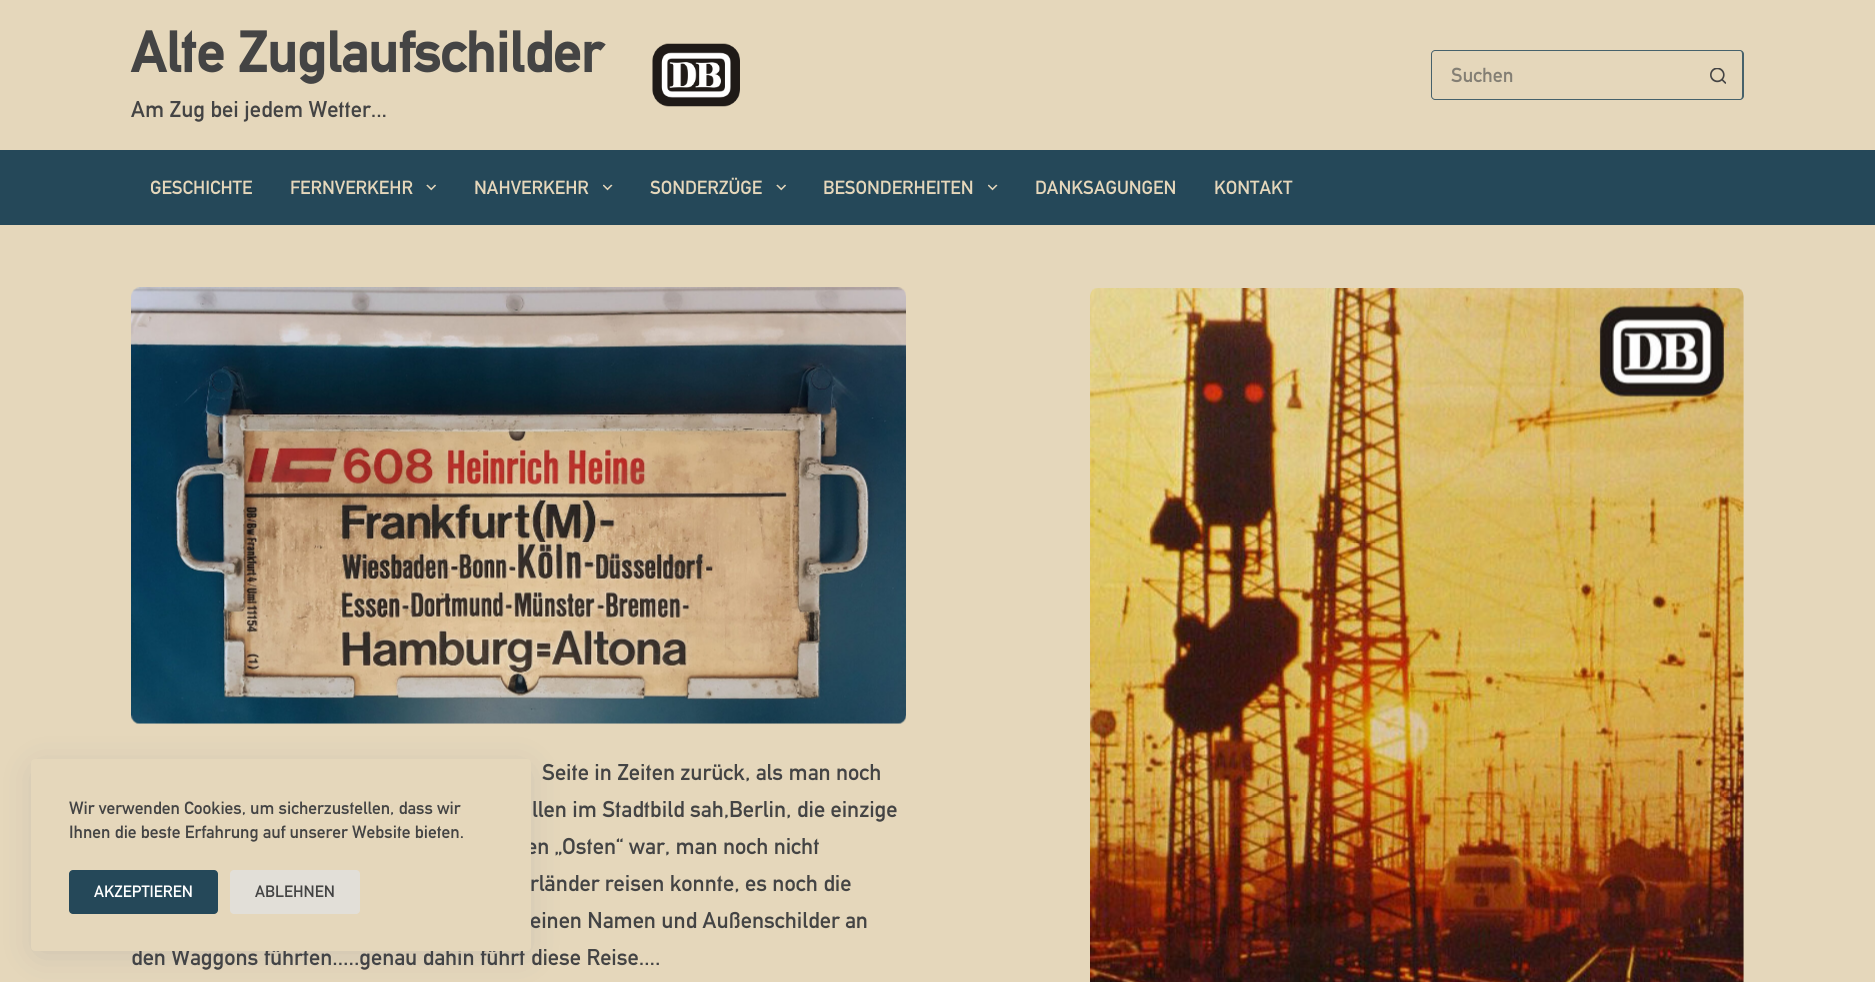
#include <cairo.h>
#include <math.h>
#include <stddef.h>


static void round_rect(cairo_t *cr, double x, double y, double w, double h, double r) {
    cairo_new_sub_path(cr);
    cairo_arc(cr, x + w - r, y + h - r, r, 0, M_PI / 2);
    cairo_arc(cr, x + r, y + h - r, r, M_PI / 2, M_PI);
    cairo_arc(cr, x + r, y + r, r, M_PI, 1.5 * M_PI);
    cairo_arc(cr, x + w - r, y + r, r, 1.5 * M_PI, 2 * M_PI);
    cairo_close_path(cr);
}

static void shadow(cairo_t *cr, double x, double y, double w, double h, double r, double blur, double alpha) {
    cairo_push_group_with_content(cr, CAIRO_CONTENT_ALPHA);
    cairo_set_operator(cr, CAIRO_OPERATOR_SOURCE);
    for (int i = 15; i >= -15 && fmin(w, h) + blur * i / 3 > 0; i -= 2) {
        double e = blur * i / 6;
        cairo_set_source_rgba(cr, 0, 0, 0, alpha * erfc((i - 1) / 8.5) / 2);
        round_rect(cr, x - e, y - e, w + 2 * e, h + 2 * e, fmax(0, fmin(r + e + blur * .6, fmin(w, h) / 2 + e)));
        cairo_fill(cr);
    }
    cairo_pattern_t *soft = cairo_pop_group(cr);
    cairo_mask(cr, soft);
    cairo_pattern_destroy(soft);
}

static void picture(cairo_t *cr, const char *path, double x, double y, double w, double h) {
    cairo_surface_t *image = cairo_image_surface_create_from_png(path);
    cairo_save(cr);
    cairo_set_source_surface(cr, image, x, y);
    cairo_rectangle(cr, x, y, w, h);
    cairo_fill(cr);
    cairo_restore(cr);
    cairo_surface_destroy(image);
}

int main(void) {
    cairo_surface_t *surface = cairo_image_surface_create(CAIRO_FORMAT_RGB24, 1875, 982);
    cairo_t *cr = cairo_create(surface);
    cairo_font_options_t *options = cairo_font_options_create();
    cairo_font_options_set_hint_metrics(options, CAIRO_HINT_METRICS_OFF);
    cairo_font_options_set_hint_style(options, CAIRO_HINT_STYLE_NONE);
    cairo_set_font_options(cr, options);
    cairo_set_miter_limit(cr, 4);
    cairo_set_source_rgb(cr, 0.898, 0.843, 0.733);
    cairo_paint(cr);
    cairo_select_font_face(cr, "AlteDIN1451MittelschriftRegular", CAIRO_FONT_SLANT_NORMAL, CAIRO_FONT_WEIGHT_BOLD);
    cairo_set_font_size(cr, 56.25);
    cairo_set_source_rgb(cr, 0.267, 0.267, 0.267);
    cairo_move_to(cr, 131, 72);
    cairo_show_text(cr, "Alte Zuglaufschilder");
    cairo_select_font_face(cr, "AlteDIN1451MittelschriftRegular", CAIRO_FONT_SLANT_NORMAL, CAIRO_FONT_WEIGHT_NORMAL);
    cairo_set_font_size(cr, 22.5);
    cairo_move_to(cr, 131, 117);
    cairo_show_text(cr, "Am Zug bei jedem Wetter...");
    picture(cr, "img1.png", 652, 43, 88, 64);
    cairo_set_source_rgb(cr, 0.275, 0.38, 0.42);
    cairo_set_fill_rule(cr, CAIRO_FILL_RULE_EVEN_ODD);
    cairo_new_path(cr);
    cairo_move_to(cr, 1435, 50);
    cairo_line_to(cr, 1694, 50);
    cairo_line_to(cr, 1694, 100);
    cairo_line_to(cr, 1435, 100);
    cairo_curve_to(cr, 1433, 100, 1431, 98, 1431, 96);
    cairo_line_to(cr, 1431, 54);
    cairo_curve_to(cr, 1431, 52, 1433, 50, 1435, 50);
    cairo_close_path(cr);
    cairo_move_to(cr, 1435, 51);
    cairo_line_to(cr, 1694, 51);
    cairo_line_to(cr, 1694, 99);
    cairo_line_to(cr, 1435, 99);
    cairo_curve_to(cr, 1434, 99, 1432, 98, 1432, 96);
    cairo_line_to(cr, 1432, 54);
    cairo_curve_to(cr, 1432, 52, 1434, 51, 1435, 51);
    cairo_close_path(cr);
    cairo_fill(cr);
    cairo_set_font_size(cr, 20);
    cairo_set_source_rgb(cr, 0.518, 0.498, 0.455);
    cairo_move_to(cr, 1451, 82);
    cairo_show_text(cr, "Suchen");
    cairo_set_source_rgb(cr, 0.275, 0.38, 0.42);
    cairo_new_path(cr);
    cairo_move_to(cr, 1694, 50);
    cairo_line_to(cr, 1740, 50);
    cairo_curve_to(cr, 1742, 50, 1744, 52, 1744, 54);
    cairo_line_to(cr, 1744, 96);
    cairo_curve_to(cr, 1744, 98, 1742, 100, 1740, 100);
    cairo_line_to(cr, 1694, 100);
    cairo_close_path(cr);
    cairo_move_to(cr, 1694, 51);
    cairo_line_to(cr, 1740, 51);
    cairo_curve_to(cr, 1741, 51, 1742, 52, 1742, 54);
    cairo_line_to(cr, 1742, 96);
    cairo_curve_to(cr, 1742, 98, 1741, 99, 1740, 99);
    cairo_line_to(cr, 1694, 99);
    cairo_close_path(cr);
    cairo_fill(cr);
    picture(cr, "img2.png", 1710, 68, 16, 16);
    cairo_set_source_rgb(cr, 0.145, 0.282, 0.349);
    cairo_rectangle(cr, 0, 150, 1875, 75);
    cairo_fill(cr);
    cairo_set_font_size(cr, 18.75);
    cairo_set_source_rgb(cr, 0.898, 0.843, 0.733);
    cairo_move_to(cr, 150, 194);
    cairo_show_text(cr, "GESCHICHTE");
    cairo_move_to(cr, 290, 194);
    cairo_show_text(cr, "FERNVERKEHR");
    picture(cr, "img3.png", 426, 184, 10, 7);
    cairo_move_to(cr, 474, 194);
    cairo_show_text(cr, "NAHVERKEHR");
    picture(cr, "img4.png", 603, 184, 10, 7);
    cairo_move_to(cr, 650, 194);
    cairo_show_text(cr, "SONDERZÜGE");
    picture(cr, "img3.png", 776, 184, 10, 7);
    cairo_move_to(cr, 823, 194);
    cairo_show_text(cr, "BESONDERHEITEN");
    picture(cr, "img4.png", 988, 184, 10, 7);
    cairo_move_to(cr, 1035, 194);
    cairo_show_text(cr, "DANKSAGUNGEN");
    cairo_move_to(cr, 1214, 194);
    cairo_show_text(cr, "KONTAKT");
    picture(cr, "img5.png", 131, 287, 775, 437);
    cairo_set_font_size(cr, 22.5);
    cairo_set_source_rgb(cr, 0.267, 0.267, 0.267);
    cairo_move_to(cr, 542, 780);
    cairo_show_text(cr, "Seite in Zeiten zurück, als man noch");
    cairo_move_to(cr, 532, 817);
    cairo_show_text(cr, "llen im Stadtbild sah,Berlin, die einzige");
    cairo_move_to(cr, 526, 854);
    cairo_show_text(cr, "en „Osten“ war, man noch nicht");
    cairo_move_to(cr, 530, 891);
    cairo_show_text(cr, "rländer reisen konnte, es noch die");
    cairo_move_to(cr, 530, 928);
    cairo_show_text(cr, "einen Namen und Außenschilder an");
    cairo_move_to(cr, 131, 965);
    cairo_show_text(cr, "den Waggons führten…..genau dahin führt diese Reise….");
    picture(cr, "img6.png", 1090, 288, 654, 694);
    cairo_set_source_rgb(cr, 0.133, 0.22, 0.396);
    shadow(cr, 38, 771, 487, 180, 0, 19, 0.15);
    cairo_set_source_rgb(cr, 0.898, 0.843, 0.733);
    round_rect(cr, 31, 759, 500, 192, 4);
    cairo_fill(cr);
    cairo_set_font_size(cr, 17.5);
    cairo_set_source_rgb(cr, 0.267, 0.267, 0.267);
    cairo_move_to(cr, 69, 814);
    cairo_show_text(cr, "Wir verwenden Cookies, um sicherzustellen, dass wir");
    cairo_move_to(cr, 69, 838);
    cairo_show_text(cr, "Ihnen die beste Erfahrung auf unserer Website bieten.");
    cairo_set_source_rgb(cr, 0.145, 0.282, 0.349);
    round_rect(cr, 69, 870, 149, 44, 4);
    cairo_fill(cr);
    cairo_set_font_size(cr, 16.25);
    cairo_set_source_rgb(cr, 1, 1, 1);
    cairo_move_to(cr, 94, 897);
    cairo_show_text(cr, "AKZEPTIEREN");
    cairo_set_source_rgb(cr, 0.886, 0.875, 0.847);
    round_rect(cr, 230, 870, 130, 44, 4);
    cairo_fill(cr);
    cairo_set_source_rgb(cr, 0.267, 0.267, 0.267);
    cairo_move_to(cr, 255, 897);
    cairo_show_text(cr, "ABLEHNEN");
    cairo_surface_write_to_png(surface, "page.png");
    cairo_font_options_destroy(options);
    cairo_destroy(cr);
    cairo_surface_destroy(surface);
    return 0;
}
